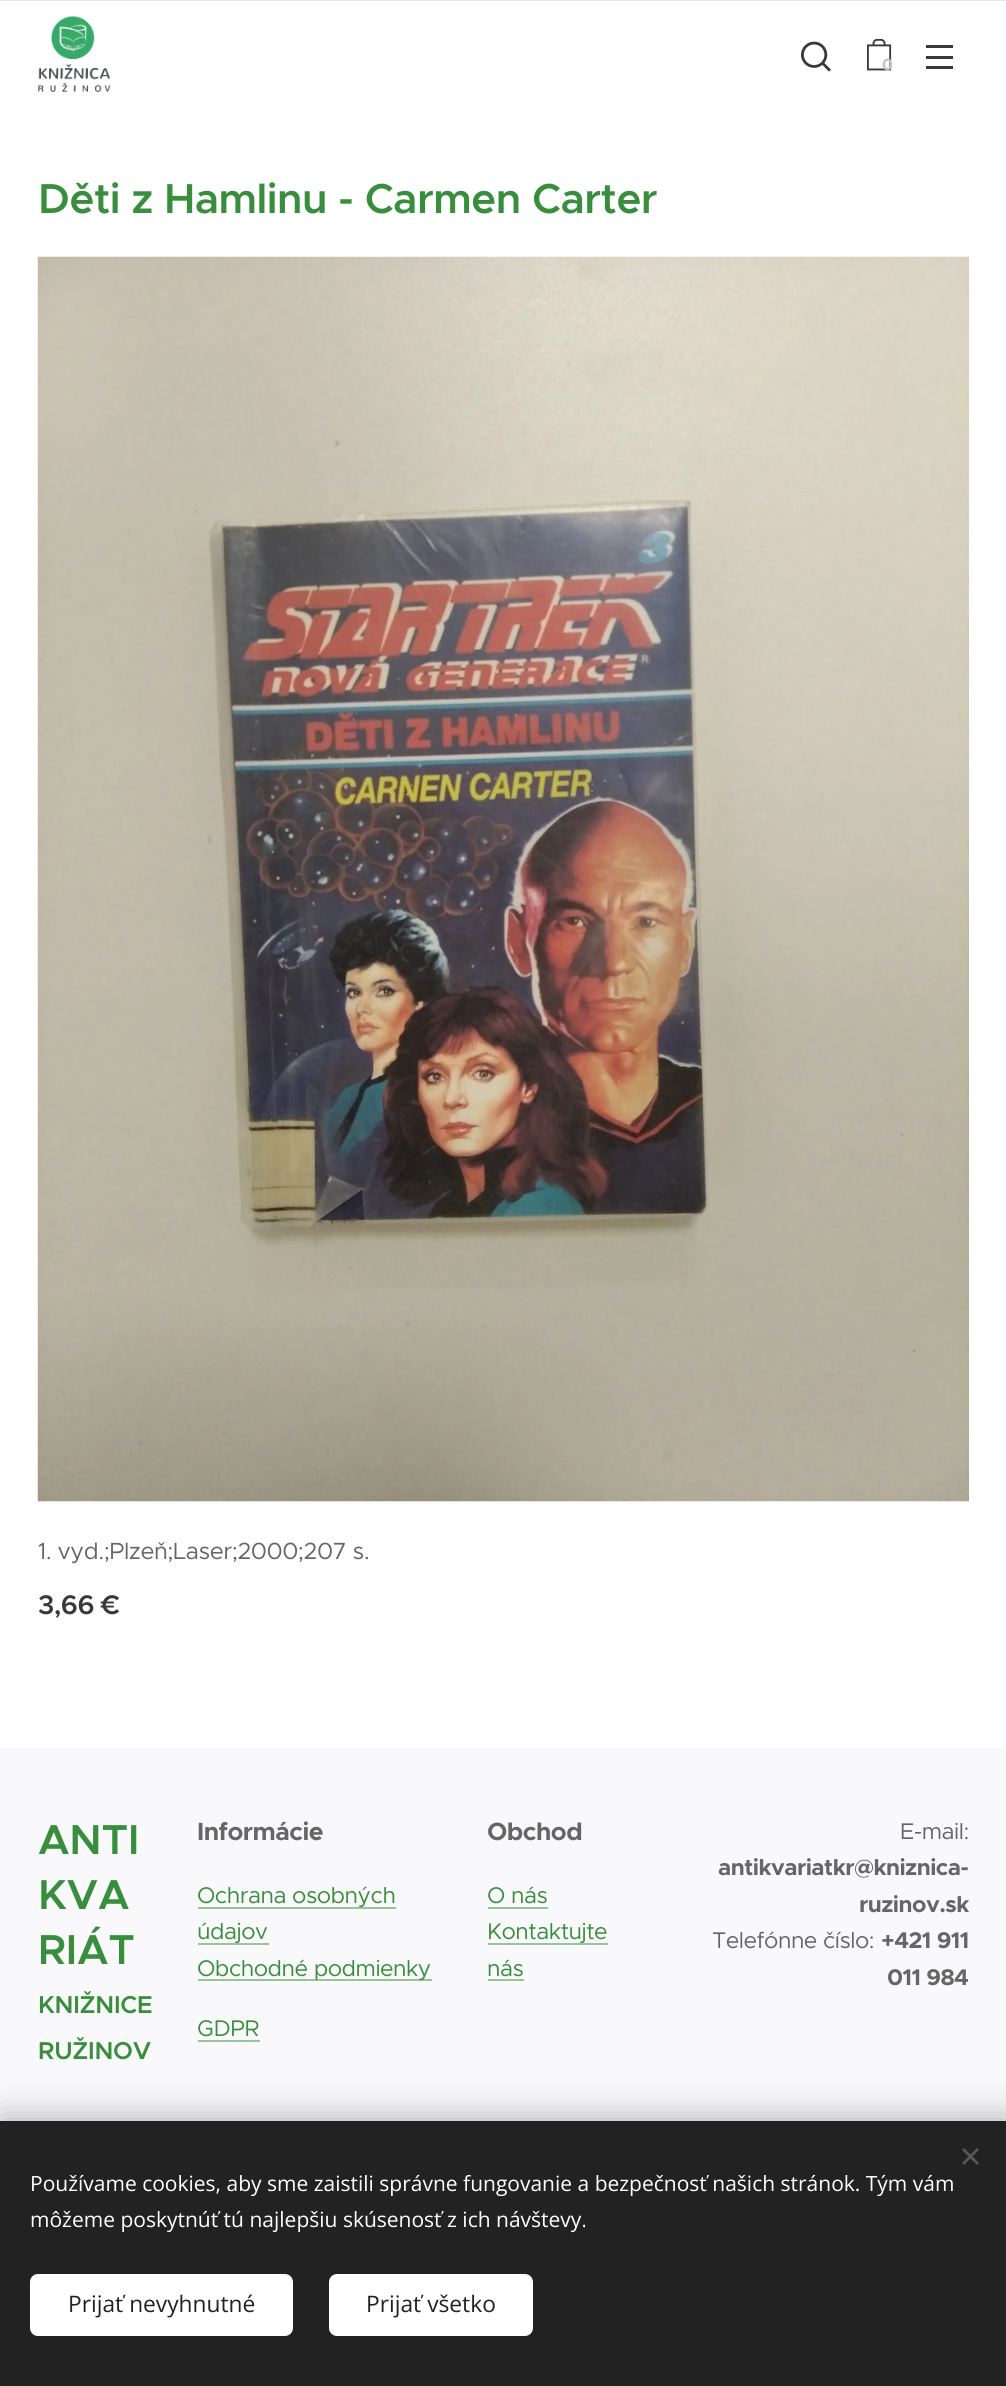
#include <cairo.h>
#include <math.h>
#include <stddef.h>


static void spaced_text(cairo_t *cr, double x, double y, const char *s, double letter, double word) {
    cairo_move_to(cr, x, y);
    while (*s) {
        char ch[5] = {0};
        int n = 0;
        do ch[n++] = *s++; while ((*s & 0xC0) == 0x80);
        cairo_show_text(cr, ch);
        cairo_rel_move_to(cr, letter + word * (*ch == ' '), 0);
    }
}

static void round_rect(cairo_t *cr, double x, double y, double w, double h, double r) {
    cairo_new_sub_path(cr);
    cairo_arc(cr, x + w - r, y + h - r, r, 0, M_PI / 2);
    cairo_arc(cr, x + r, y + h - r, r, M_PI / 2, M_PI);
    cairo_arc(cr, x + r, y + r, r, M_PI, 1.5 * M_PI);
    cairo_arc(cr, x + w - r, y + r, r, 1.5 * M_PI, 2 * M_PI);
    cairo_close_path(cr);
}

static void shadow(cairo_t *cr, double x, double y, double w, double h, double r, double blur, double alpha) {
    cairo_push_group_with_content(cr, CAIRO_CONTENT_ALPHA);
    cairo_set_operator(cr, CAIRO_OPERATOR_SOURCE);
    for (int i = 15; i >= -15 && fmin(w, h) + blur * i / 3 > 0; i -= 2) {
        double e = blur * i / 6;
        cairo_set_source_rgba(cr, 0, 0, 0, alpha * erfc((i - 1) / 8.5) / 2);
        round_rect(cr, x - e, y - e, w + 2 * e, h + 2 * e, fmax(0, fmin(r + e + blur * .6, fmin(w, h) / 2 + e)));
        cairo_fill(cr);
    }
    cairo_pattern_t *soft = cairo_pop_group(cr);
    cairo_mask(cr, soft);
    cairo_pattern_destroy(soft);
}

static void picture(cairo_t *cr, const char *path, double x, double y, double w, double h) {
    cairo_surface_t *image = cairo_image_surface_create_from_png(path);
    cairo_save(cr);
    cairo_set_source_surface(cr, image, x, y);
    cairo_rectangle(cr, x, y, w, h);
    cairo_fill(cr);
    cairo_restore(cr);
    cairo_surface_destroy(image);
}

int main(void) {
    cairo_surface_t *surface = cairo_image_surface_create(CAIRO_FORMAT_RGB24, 1006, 2386);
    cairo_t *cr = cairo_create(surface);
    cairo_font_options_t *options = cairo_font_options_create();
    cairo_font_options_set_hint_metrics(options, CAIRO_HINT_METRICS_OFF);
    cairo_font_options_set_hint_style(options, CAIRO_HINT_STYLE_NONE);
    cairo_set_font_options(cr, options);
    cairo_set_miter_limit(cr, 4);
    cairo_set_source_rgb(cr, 1, 1, 1);
    cairo_paint(cr);
    picture(cr, "img1.png", 37, 16, 74, 76);
    cairo_set_source_rgb(cr, 0.91, 0.91, 0.91);
    cairo_rectangle(cr, 0, 0, 1006, 1);
    cairo_fill(cr);
    picture(cr, "img2.png", 801, 41, 30, 31);
    picture(cr, "img3.png", 867, 38, 25, 33);
    cairo_select_font_face(cr, "Montserrat", CAIRO_FONT_SLANT_NORMAL, CAIRO_FONT_WEIGHT_BOLD);
    cairo_set_font_size(cr, 16);
    cairo_set_source_rgb(cr, 0.773, 0.773, 0.773);
    cairo_move_to(cr, 882, 70);
    cairo_show_text(cr, "0");
    cairo_set_source_rgb(cr, 0.224, 0.224, 0.224);
    cairo_rectangle(cr, 926, 56, 27, 3);
    cairo_fill(cr);
    cairo_rectangle(cr, 926, 45, 27, 3);
    cairo_fill(cr);
    cairo_rectangle(cr, 926, 66, 27, 3);
    cairo_fill(cr);
    cairo_select_font_face(cr, "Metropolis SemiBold", CAIRO_FONT_SLANT_NORMAL, CAIRO_FONT_WEIGHT_NORMAL);
    cairo_set_font_size(cr, 42);
    cairo_set_source_rgb(cr, 0.22, 0.557, 0.235);
    spaced_text(cr, 38, 213, "Děti z Hamlinu - Carmen Carter", -0.5, 0);
    picture(cr, "img4.png", 37, 256, 932, 1246);
    cairo_select_font_face(cr, "Metropolis", CAIRO_FONT_SLANT_NORMAL, CAIRO_FONT_WEIGHT_NORMAL);
    cairo_set_font_size(cr, 23.5);
    cairo_set_source_rgb(cr, 0.4, 0.4, 0.4);
    spaced_text(cr, 38, 1559, "1. vyd.;Plzeň;Laser;2000;207 s.", -0.5, 0);
    cairo_select_font_face(cr, "Metropolis SemiBold", CAIRO_FONT_SLANT_NORMAL, CAIRO_FONT_WEIGHT_NORMAL);
    cairo_set_font_size(cr, 27);
    cairo_set_source_rgb(cr, 0.224, 0.224, 0.224);
    spaced_text(cr, 38, 1614, "3,66 €", -0.5, 0);
    cairo_set_source_rgb(cr, 0.976, 0.969, 0.98);
    cairo_rectangle(cr, 0, 1748, 1006, 373);
    cairo_fill(cr);
    cairo_set_font_size(cr, 42);
    cairo_set_source_rgb(cr, 0.22, 0.557, 0.235);
    spaced_text(cr, 38, 1854, "ANTI", -0.25, 0);
    spaced_text(cr, 38, 1909, "KVA", -0.25, 0);
    spaced_text(cr, 38, 1964, "RIÁT", -0.25, 0);
    cairo_set_font_size(cr, 24.5);
    spaced_text(cr, 38, 2013, "KNIŽNICE", -0.25, 0);
    spaced_text(cr, 38, 2059, "RUŽINOV", -0.25, 0);
    cairo_select_font_face(cr, "Metropolis", CAIRO_FONT_SLANT_NORMAL, CAIRO_FONT_WEIGHT_BOLD);
    cairo_set_font_size(cr, 25);
    cairo_set_source_rgb(cr, 0.4, 0.4, 0.4);
    spaced_text(cr, 197, 1840, "Informácie", -0.5, 0);
    cairo_set_source_rgb(cr, 0.6, 0.765, 0.608);
    cairo_rectangle(cr, 198, 1907, 198, 2);
    cairo_fill(cr);
    cairo_select_font_face(cr, "Metropolis", CAIRO_FONT_SLANT_NORMAL, CAIRO_FONT_WEIGHT_NORMAL);
    cairo_set_font_size(cr, 22.75);
    cairo_set_source_rgb(cr, 0.22, 0.557, 0.235);
    spaced_text(cr, 197, 1903, "Ochrana osobných", -0.5, 0);
    cairo_set_source_rgb(cr, 0.6, 0.765, 0.608);
    cairo_rectangle(cr, 198, 1943, 71, 2);
    cairo_fill(cr);
    cairo_set_source_rgb(cr, 0.22, 0.557, 0.235);
    spaced_text(cr, 197, 1939, "údajov", -0.5, 0);
    cairo_set_source_rgb(cr, 0.6, 0.765, 0.608);
    cairo_rectangle(cr, 198, 1979, 234, 2);
    cairo_fill(cr);
    cairo_set_source_rgb(cr, 0.22, 0.557, 0.235);
    spaced_text(cr, 197, 1976, "Obchodné podmienky", -0.5, 0);
    spaced_text(cr, 197, 2036, "GDPR", -0.5, 0);
    cairo_set_source_rgb(cr, 0.6, 0.765, 0.608);
    cairo_rectangle(cr, 198, 2040, 62, 2);
    cairo_fill(cr);
    cairo_select_font_face(cr, "Metropolis", CAIRO_FONT_SLANT_NORMAL, CAIRO_FONT_WEIGHT_BOLD);
    cairo_set_font_size(cr, 25);
    cairo_set_source_rgb(cr, 0.4, 0.4, 0.4);
    spaced_text(cr, 487, 1840, "Obchod", -0.5, 0);
    cairo_select_font_face(cr, "Metropolis", CAIRO_FONT_SLANT_NORMAL, CAIRO_FONT_WEIGHT_NORMAL);
    cairo_set_font_size(cr, 22.75);
    cairo_set_source_rgb(cr, 0.22, 0.557, 0.235);
    spaced_text(cr, 487, 1903, "O nás", -0.5, 0);
    cairo_set_source_rgb(cr, 0.6, 0.765, 0.608);
    cairo_rectangle(cr, 488, 1907, 60, 2);
    cairo_fill(cr);
    cairo_rectangle(cr, 488, 1943, 120, 2);
    cairo_fill(cr);
    cairo_set_source_rgb(cr, 0.22, 0.557, 0.235);
    spaced_text(cr, 487, 1939, "Kontaktujte", -0.5, 0);
    spaced_text(cr, 487, 1976, "nás", -0.5, 0);
    cairo_set_source_rgb(cr, 0.6, 0.765, 0.608);
    cairo_rectangle(cr, 488, 1979, 36, 2);
    cairo_fill(cr);
    cairo_set_source_rgb(cr, 0.4, 0.4, 0.4);
    spaced_text(cr, 900, 1839, "E-mail:", -0.5, 0);
    cairo_select_font_face(cr, "Metropolis", CAIRO_FONT_SLANT_NORMAL, CAIRO_FONT_WEIGHT_BOLD);
    spaced_text(cr, 718, 1875, "antikvariatkr@kniznica-", -0.5, 0);
    spaced_text(cr, 859, 1912, "ruzinov.sk", -0.5, 0);
    cairo_select_font_face(cr, "Metropolis", CAIRO_FONT_SLANT_NORMAL, CAIRO_FONT_WEIGHT_NORMAL);
    spaced_text(cr, 712, 1948, "Telefónne číslo:", -0.5, 0);
    cairo_select_font_face(cr, "Metropolis", CAIRO_FONT_SLANT_NORMAL, CAIRO_FONT_WEIGHT_BOLD);
    spaced_text(cr, 881, 1948, "+421 911", -0.5, 0);
    spaced_text(cr, 887, 1985, "011 984", -0.5, 0);
    cairo_set_source_rgb(cr, 0, 0, 0);
    shadow(cr, 0, 2121, 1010, 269, 0, 19, 0.33);
    cairo_set_source_rgb(cr, 0.133, 0.133, 0.133);
    cairo_rectangle(cr, 0, 2121, 1006, 265);
    cairo_fill(cr);
    cairo_set_source_rgb(cr, 0.333, 0.333, 0.333);
    cairo_new_path(cr);
    cairo_move_to(cr, 962, 2163);
    cairo_line_to(cr, 977, 2148);
    cairo_line_to(cr, 979, 2150);
    cairo_line_to(cr, 964, 2165);
    cairo_close_path(cr);
    cairo_fill(cr);
    cairo_new_path(cr);
    cairo_move_to(cr, 964, 2148);
    cairo_line_to(cr, 979, 2163);
    cairo_line_to(cr, 977, 2165);
    cairo_line_to(cr, 962, 2150);
    cairo_close_path(cr);
    cairo_fill(cr);
    cairo_select_font_face(cr, "Open Sans", CAIRO_FONT_SLANT_NORMAL, CAIRO_FONT_WEIGHT_NORMAL);
    cairo_set_font_size(cr, 21);
    cairo_set_source_rgb(cr, 1, 1, 1);
    cairo_move_to(cr, 30, 2191);
    cairo_show_text(cr, "Používame cookies, aby sme zaistili správne fungovanie a bezpečnosť našich stránok. Tým vám");
    cairo_move_to(cr, 30, 2227);
    cairo_show_text(cr, "môžeme poskytnúť tú najlepšiu skúsenosť z ich návštevy.");
    round_rect(cr, 30, 2274, 263, 62, 8);
    cairo_fill(cr);
    cairo_set_font_size(cr, 22.75);
    cairo_set_source_rgb(cr, 0.133, 0.133, 0.133);
    cairo_move_to(cr, 68, 2312);
    cairo_show_text(cr, "Prijať nevyhnutné");
    cairo_set_source_rgb(cr, 1, 1, 1);
    round_rect(cr, 329, 2274, 204, 62, 8);
    cairo_fill(cr);
    cairo_set_source_rgb(cr, 0.133, 0.133, 0.133);
    cairo_move_to(cr, 366, 2312);
    cairo_show_text(cr, "Prijať všetko");
    cairo_surface_write_to_png(surface, "page.png");
    cairo_font_options_destroy(options);
    cairo_destroy(cr);
    cairo_surface_destroy(surface);
    return 0;
}
